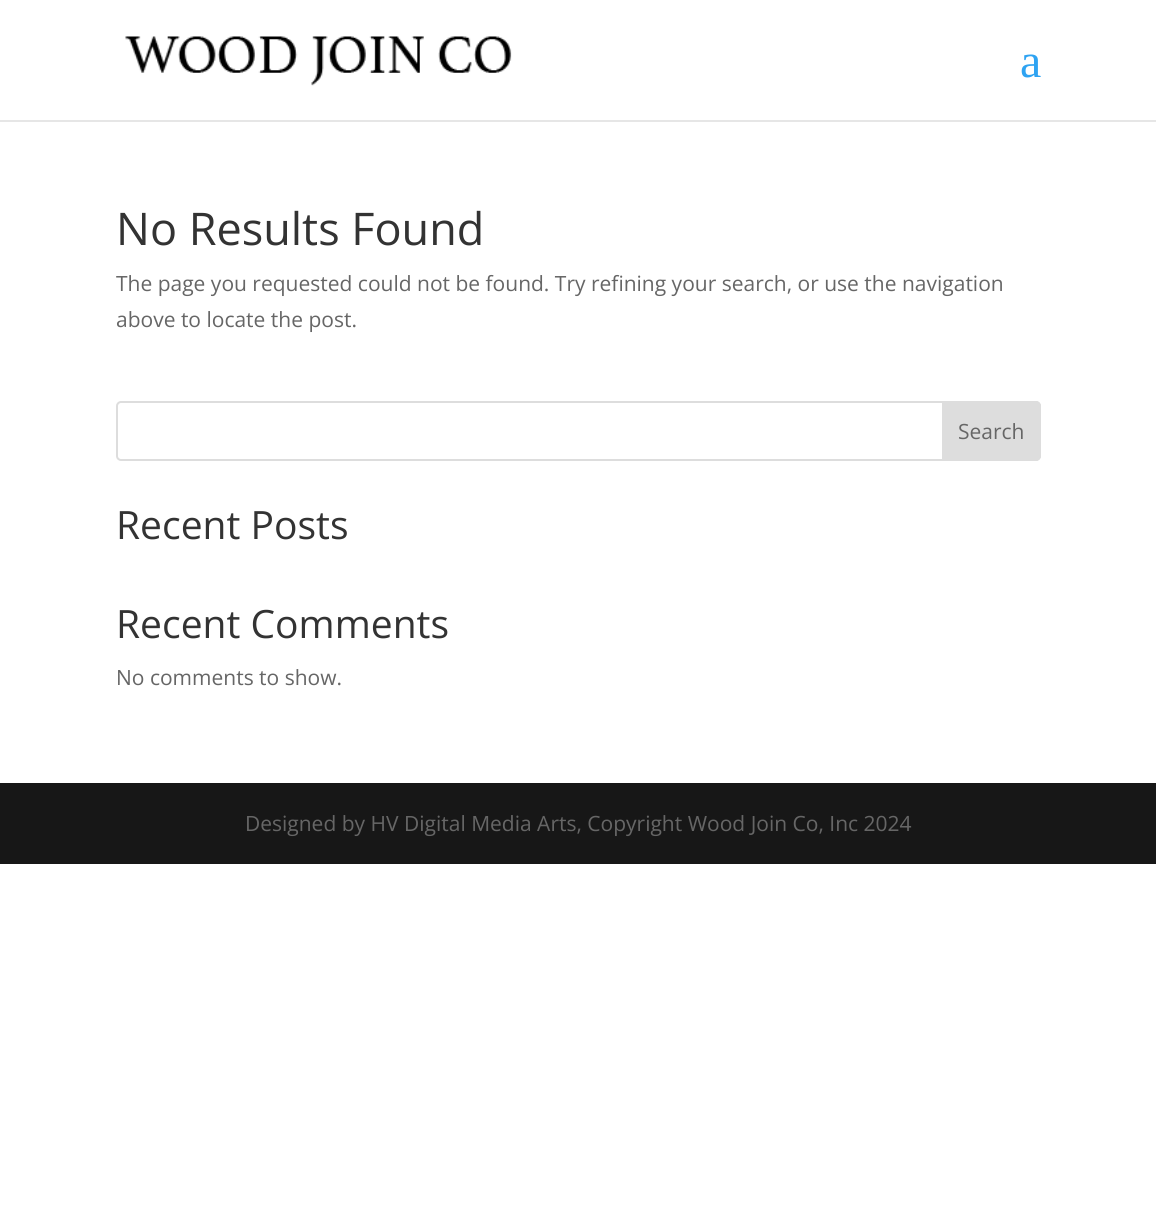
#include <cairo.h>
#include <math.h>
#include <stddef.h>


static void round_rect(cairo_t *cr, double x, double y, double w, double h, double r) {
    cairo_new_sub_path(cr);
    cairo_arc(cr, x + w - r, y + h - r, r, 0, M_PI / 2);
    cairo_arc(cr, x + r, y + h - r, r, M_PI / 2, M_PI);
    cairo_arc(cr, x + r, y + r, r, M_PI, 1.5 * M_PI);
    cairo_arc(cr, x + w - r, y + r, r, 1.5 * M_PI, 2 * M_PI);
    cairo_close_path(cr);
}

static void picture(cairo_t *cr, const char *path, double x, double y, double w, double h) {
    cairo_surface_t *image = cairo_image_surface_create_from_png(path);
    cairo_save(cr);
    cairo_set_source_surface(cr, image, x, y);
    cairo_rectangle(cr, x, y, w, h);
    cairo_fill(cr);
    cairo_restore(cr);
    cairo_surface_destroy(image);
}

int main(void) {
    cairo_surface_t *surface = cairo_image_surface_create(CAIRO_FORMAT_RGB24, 1156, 1226);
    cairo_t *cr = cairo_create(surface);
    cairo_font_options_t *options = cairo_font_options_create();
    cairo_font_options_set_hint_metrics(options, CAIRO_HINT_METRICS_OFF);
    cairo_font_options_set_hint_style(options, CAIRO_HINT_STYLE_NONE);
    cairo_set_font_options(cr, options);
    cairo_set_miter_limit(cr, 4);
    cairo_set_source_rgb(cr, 1, 1, 1);
    cairo_paint(cr);
    cairo_set_source_rgb(cr, 0.902, 0.902, 0.902);
    cairo_new_path(cr);
    cairo_move_to(cr, 0, 120);
    cairo_line_to(cr, 0, 122);
    cairo_line_to(cr, 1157, 122);
    cairo_line_to(cr, 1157, 2);
    cairo_line_to(cr, 1156, 2);
    cairo_line_to(cr, 1156, 120);
    cairo_close_path(cr);
    cairo_fill(cr);
    picture(cr, "img1.png", 125, 36, 387, 50);
    cairo_select_font_face(cr, "Liberation Serif", CAIRO_FONT_SLANT_NORMAL, CAIRO_FONT_WEIGHT_NORMAL);
    cairo_set_font_size(cr, 48);
    cairo_set_source_rgb(cr, 0.18, 0.639, 0.949);
    cairo_move_to(cr, 1020, 77);
    cairo_show_text(cr, "a");
    cairo_select_font_face(cr, "Open Sans", CAIRO_FONT_SLANT_NORMAL, CAIRO_FONT_WEIGHT_NORMAL);
    cairo_set_font_size(cr, 45);
    cairo_set_source_rgb(cr, 0.2, 0.2, 0.2);
    cairo_move_to(cr, 116, 245);
    cairo_show_text(cr, "No Results Found");
    cairo_set_font_size(cr, 21);
    cairo_set_source_rgb(cr, 0.4, 0.4, 0.4);
    cairo_move_to(cr, 116, 291);
    cairo_show_text(cr, "The page you requested could not be found. Try refining your search, or use the navigation");
    cairo_move_to(cr, 116, 327);
    cairo_show_text(cr, "above to locate the post.");
    round_rect(cr, 117, 402, 923, 58, 4);
    cairo_set_source_rgb(cr, 0.867, 0.867, 0.867);
    cairo_stroke(cr);
    cairo_new_path(cr);
    cairo_move_to(cr, 943, 402);
    cairo_line_to(cr, 1036, 402);
    cairo_curve_to(cr, 1038, 402, 1040, 404, 1040, 406);
    cairo_line_to(cr, 1040, 456);
    cairo_curve_to(cr, 1040, 458, 1038, 460, 1036, 460);
    cairo_line_to(cr, 943, 460);
    cairo_close_path(cr);
    cairo_fill_preserve(cr);
    cairo_stroke(cr);
    cairo_set_source_rgb(cr, 0.4, 0.4, 0.4);
    cairo_move_to(cr, 958, 439);
    cairo_show_text(cr, "Search");
    cairo_set_font_size(cr, 39);
    cairo_set_source_rgb(cr, 0.2, 0.2, 0.2);
    cairo_move_to(cr, 116, 539);
    cairo_show_text(cr, "Recent Posts");
    cairo_move_to(cr, 116, 638);
    cairo_show_text(cr, "Recent Comments");
    cairo_set_font_size(cr, 21);
    cairo_set_source_rgb(cr, 0.4, 0.4, 0.4);
    cairo_move_to(cr, 116, 685);
    cairo_show_text(cr, "No comments to show.");
    cairo_set_source_rgb(cr, 0.09, 0.09, 0.09);
    cairo_rectangle(cr, 0, 783, 1156, 81);
    cairo_fill(cr);
    cairo_set_source_rgb(cr, 0.4, 0.4, 0.4);
    cairo_move_to(cr, 245, 831);
    cairo_show_text(cr, "Designed by HV Digital Media Arts, Copyright Wood Join Co, Inc 2024");
    cairo_surface_write_to_png(surface, "page.png");
    cairo_font_options_destroy(options);
    cairo_destroy(cr);
    cairo_surface_destroy(surface);
    return 0;
}
